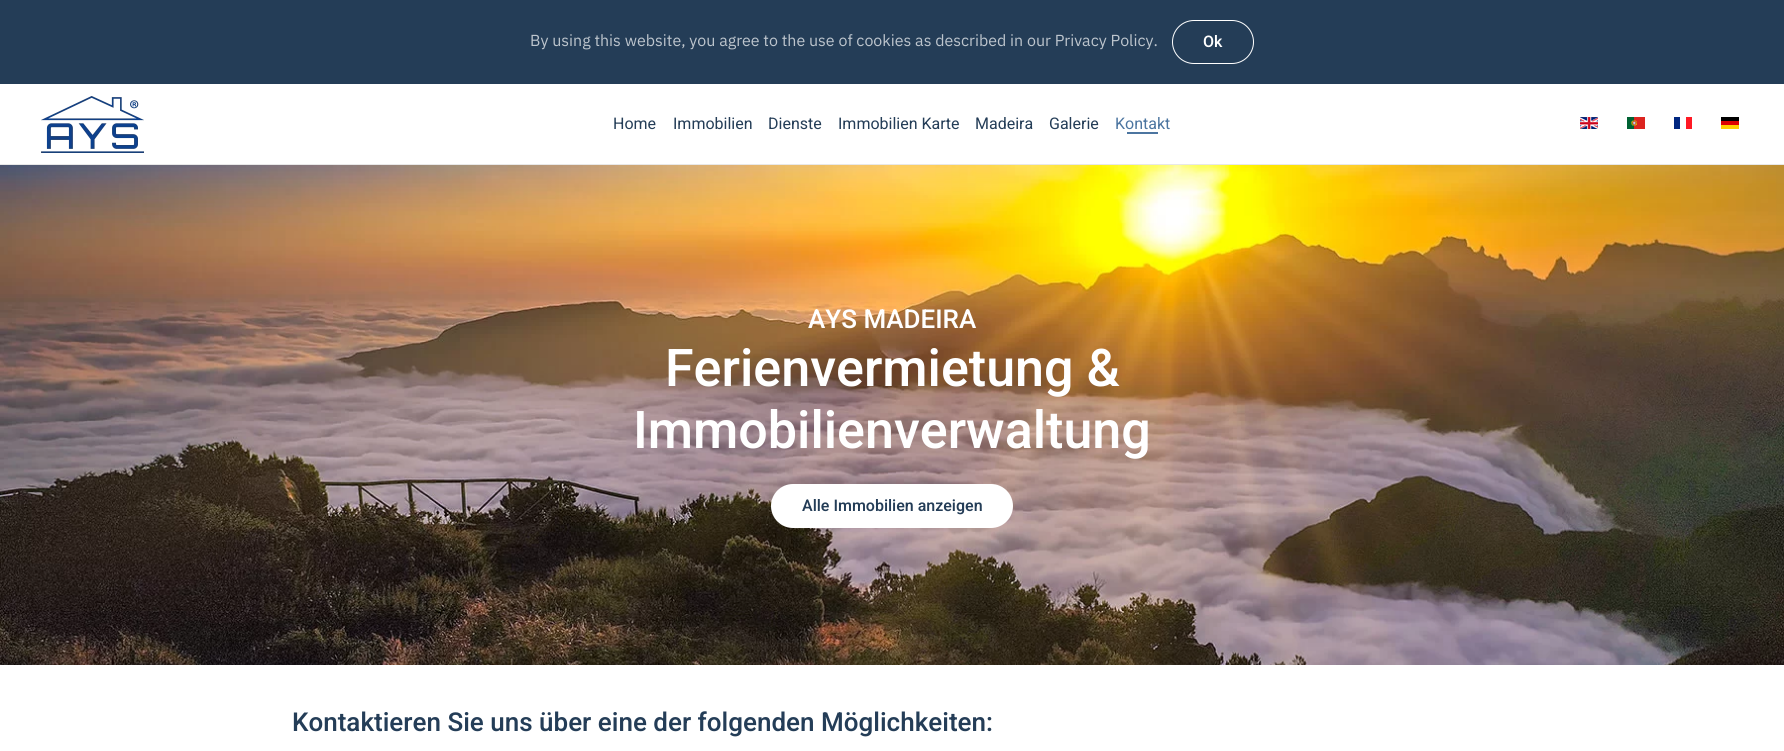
#include <cairo.h>
#include <math.h>
#include <stddef.h>


static void round_rect(cairo_t *cr, double x, double y, double w, double h, double r) {
    cairo_new_sub_path(cr);
    cairo_arc(cr, x + w - r, y + h - r, r, 0, M_PI / 2);
    cairo_arc(cr, x + r, y + h - r, r, M_PI / 2, M_PI);
    cairo_arc(cr, x + r, y + r, r, M_PI, 1.5 * M_PI);
    cairo_arc(cr, x + w - r, y + r, r, 1.5 * M_PI, 2 * M_PI);
    cairo_close_path(cr);
}

static void picture(cairo_t *cr, const char *path, double x, double y, double w, double h) {
    cairo_surface_t *image = cairo_image_surface_create_from_png(path);
    cairo_save(cr);
    cairo_set_source_surface(cr, image, x, y);
    cairo_rectangle(cr, x, y, w, h);
    cairo_fill(cr);
    cairo_restore(cr);
    cairo_surface_destroy(image);
}

int main(void) {
    cairo_surface_t *surface = cairo_image_surface_create(CAIRO_FORMAT_RGB24, 1784, 751);
    cairo_t *cr = cairo_create(surface);
    cairo_font_options_t *options = cairo_font_options_create();
    cairo_font_options_set_hint_metrics(options, CAIRO_HINT_METRICS_OFF);
    cairo_font_options_set_hint_style(options, CAIRO_HINT_STYLE_NONE);
    cairo_set_font_options(cr, options);
    cairo_set_miter_limit(cr, 4);
    cairo_set_source_rgb(cr, 1, 1, 1);
    cairo_paint(cr);
    cairo_set_source_rgb(cr, 0.141, 0.239, 0.341);
    cairo_rectangle(cr, 0, 0, 1784, 84);
    cairo_fill(cr);
    cairo_select_font_face(cr, "IBM Plex Sans", CAIRO_FONT_SLANT_NORMAL, CAIRO_FONT_WEIGHT_NORMAL);
    cairo_set_font_size(cr, 16);
    cairo_set_source_rgb(cr, 0.741, 0.773, 0.804);
    cairo_move_to(cr, 530, 46);
    cairo_show_text(cr, "By using this website, you agree to the use of cookies as described in our Privacy Policy.");
    round_rect(cr, 1172.5, 20.5, 81, 43, 21.5);
    cairo_set_source_rgb(cr, 1, 1, 1);
    cairo_set_line_width(cr, 1);
    cairo_stroke(cr);
    cairo_select_font_face(cr, "Heebo Medium", CAIRO_FONT_SLANT_NORMAL, CAIRO_FONT_WEIGHT_NORMAL);
    cairo_move_to(cr, 1203, 47);
    cairo_show_text(cr, "Ok");
    cairo_set_source_rgb(cr, 0.91, 0.91, 0.91);
    cairo_rectangle(cr, 0, 164, 1784, 1);
    cairo_fill(cr);
    picture(cr, "img1.png", 41, 96, 103, 57);
    cairo_select_font_face(cr, "Heebo", CAIRO_FONT_SLANT_NORMAL, CAIRO_FONT_WEIGHT_NORMAL);
    cairo_set_source_rgb(cr, 0.141, 0.239, 0.341);
    cairo_move_to(cr, 613, 129);
    cairo_show_text(cr, "Home");
    cairo_move_to(cr, 673, 129);
    cairo_show_text(cr, "Immobilien");
    cairo_move_to(cr, 768, 129);
    cairo_show_text(cr, "Dienste");
    cairo_move_to(cr, 838, 129);
    cairo_show_text(cr, "Immobilien Karte");
    cairo_move_to(cr, 975, 129);
    cairo_show_text(cr, "Madeira");
    cairo_move_to(cr, 1049, 129);
    cairo_show_text(cr, "Galerie");
    cairo_set_source_rgb(cr, 0.298, 0.459, 0.627);
    cairo_move_to(cr, 1115, 129);
    cairo_show_text(cr, "Kontakt");
    cairo_rectangle(cr, 1127, 132, 31, 2);
    cairo_fill(cr);
    picture(cr, "img2.png", 1580, 117, 18, 12);
    picture(cr, "img3.png", 1627, 117, 18, 12);
    picture(cr, "img4.png", 1674, 117, 18, 12);
    picture(cr, "img5.png", 1721, 117, 18, 12);
    picture(cr, "img6.png", 0, 165, 1784, 500);
    cairo_select_font_face(cr, "Heebo Medium", CAIRO_FONT_SLANT_NORMAL, CAIRO_FONT_WEIGHT_NORMAL);
    cairo_set_font_size(cr, 26);
    cairo_set_source_rgb(cr, 1, 1, 1);
    cairo_move_to(cr, 808, 328);
    cairo_show_text(cr, "AYS MADEIRA");
    cairo_set_font_size(cr, 52);
    cairo_move_to(cr, 665, 386);
    cairo_show_text(cr, "Ferienvermietung &");
    cairo_move_to(cr, 633, 448);
    cairo_show_text(cr, "Immobilienverwaltung");
    round_rect(cr, 771, 484, 242, 44, 22);
    cairo_fill(cr);
    cairo_set_font_size(cr, 16);
    cairo_set_source_rgb(cr, 0.141, 0.239, 0.341);
    cairo_move_to(cr, 802, 511);
    cairo_show_text(cr, "Alle Immobilien anzeigen");
    cairo_set_font_size(cr, 26);
    cairo_move_to(cr, 292, 731);
    cairo_show_text(cr, "Kontaktieren Sie uns über eine der folgenden Möglichkeiten:");
    cairo_surface_write_to_png(surface, "page.png");
    cairo_font_options_destroy(options);
    cairo_destroy(cr);
    cairo_surface_destroy(surface);
    return 0;
}
